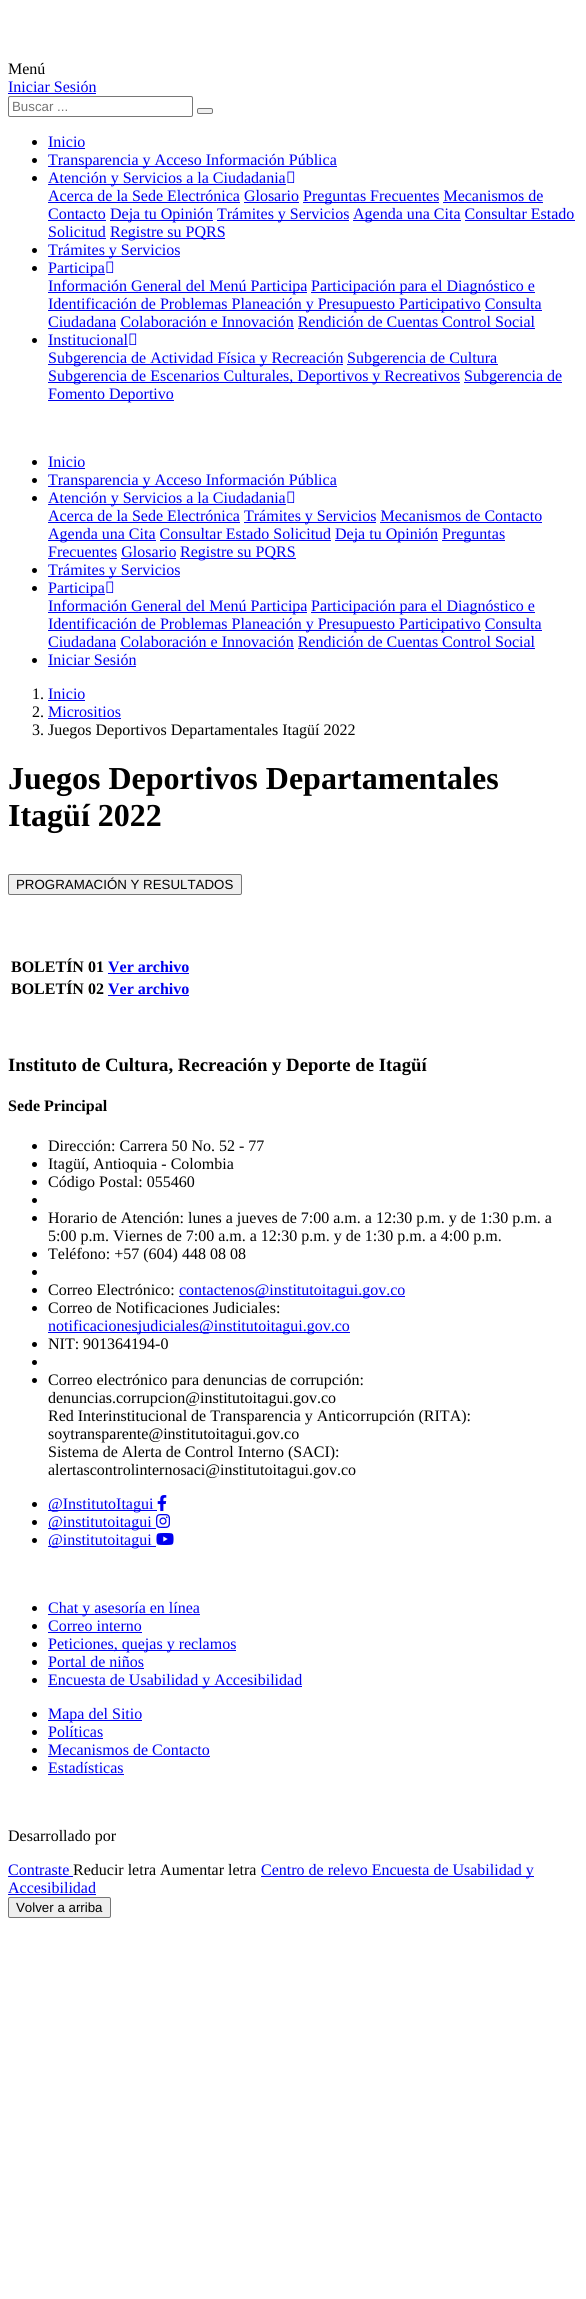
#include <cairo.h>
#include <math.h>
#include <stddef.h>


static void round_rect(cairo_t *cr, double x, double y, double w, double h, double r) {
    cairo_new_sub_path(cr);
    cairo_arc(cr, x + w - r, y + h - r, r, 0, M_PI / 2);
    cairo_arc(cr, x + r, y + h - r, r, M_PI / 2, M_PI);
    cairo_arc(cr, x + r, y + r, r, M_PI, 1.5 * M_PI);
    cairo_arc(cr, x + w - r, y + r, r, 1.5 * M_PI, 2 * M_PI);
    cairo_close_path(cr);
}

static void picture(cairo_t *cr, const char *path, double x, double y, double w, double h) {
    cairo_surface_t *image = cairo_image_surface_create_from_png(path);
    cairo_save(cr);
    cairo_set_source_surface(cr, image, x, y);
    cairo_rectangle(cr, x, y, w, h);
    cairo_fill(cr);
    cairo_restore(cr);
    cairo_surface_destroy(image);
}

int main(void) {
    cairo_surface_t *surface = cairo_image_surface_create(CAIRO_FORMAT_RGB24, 586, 2299);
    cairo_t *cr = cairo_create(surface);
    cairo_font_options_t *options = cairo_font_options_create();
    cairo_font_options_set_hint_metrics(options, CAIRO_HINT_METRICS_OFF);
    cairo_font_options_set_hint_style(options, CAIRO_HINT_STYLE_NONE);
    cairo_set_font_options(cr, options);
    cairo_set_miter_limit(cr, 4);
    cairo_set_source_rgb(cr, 1, 1, 1);
    cairo_paint(cr);
    cairo_select_font_face(cr, "Liberation Serif", CAIRO_FONT_SLANT_NORMAL, CAIRO_FONT_WEIGHT_NORMAL);
    cairo_set_font_size(cr, 16);
    cairo_set_source_rgb(cr, 0, 0, 0);
    cairo_move_to(cr, 8, 74);
    cairo_show_text(cr, "Menú");
    cairo_set_source_rgb(cr, 0, 0, 0.933);
    cairo_move_to(cr, 8, 92);
    cairo_show_text(cr, "Iniciar Sesión");
    cairo_rectangle(cr, 8, 93, 88, 1);
    cairo_fill(cr);
    round_rect(cr, 8.5, 96.5, 184, 20, 1.5);
    cairo_set_source_rgb(cr, 0.463, 0.463, 0.463);
    cairo_set_line_width(cr, 1);
    cairo_stroke(cr);
    cairo_select_font_face(cr, "Liberation Sans", CAIRO_FONT_SLANT_NORMAL, CAIRO_FONT_WEIGHT_NORMAL);
    cairo_set_font_size(cr, 13.3);
    cairo_set_source_rgb(cr, 0.459, 0.459, 0.459);
    cairo_move_to(cr, 12, 111);
    cairo_show_text(cr, "Buscar ...");
    cairo_set_source_rgb(cr, 0.937, 0.937, 0.937);
    round_rect(cr, 197.5, 108.5, 15, 5, 1.5);
    cairo_fill_preserve(cr);
    cairo_set_source_rgb(cr, 0.463, 0.463, 0.463);
    cairo_stroke(cr);
    cairo_set_source_rgb(cr, 0, 0, 0);
    cairo_arc(cr, 34.5, 142.5, 2.5, 0, 2 * M_PI);
    cairo_fill(cr);
    cairo_select_font_face(cr, "Liberation Serif", CAIRO_FONT_SLANT_NORMAL, CAIRO_FONT_WEIGHT_NORMAL);
    cairo_set_font_size(cr, 16);
    cairo_set_source_rgb(cr, 0, 0, 0.933);
    cairo_move_to(cr, 48, 147);
    cairo_show_text(cr, "Inicio");
    cairo_rectangle(cr, 48, 148, 37, 1);
    cairo_fill(cr);
    cairo_set_source_rgb(cr, 0, 0, 0);
    cairo_arc(cr, 34.5, 160.5, 2.5, 0, 2 * M_PI);
    cairo_fill(cr);
    cairo_set_source_rgb(cr, 0, 0, 0.933);
    cairo_rectangle(cr, 48, 166, 289, 1);
    cairo_fill(cr);
    cairo_move_to(cr, 48, 165);
    cairo_show_text(cr, "Transparencia y Acceso Información Pública");
    cairo_set_source_rgb(cr, 0, 0, 0);
    cairo_new_path(cr);
    cairo_arc(cr, 34.5, 178.5, 2.5, 0, 2 * M_PI);
    cairo_fill(cr);
    cairo_set_source_rgb(cr, 0, 0, 0.933);
    cairo_rectangle(cr, 48, 184, 238, 1);
    cairo_fill(cr);
    cairo_move_to(cr, 48, 183);
    cairo_show_text(cr, "Atención y Servicios a la Ciudadania");
    picture(cr, "img1.png", 287, 171, 8, 12);
    cairo_move_to(cr, 48, 201);
    cairo_show_text(cr, "Acerca de la Sede Electrónica Glosario");
    cairo_rectangle(cr, 48, 202, 192, 1);
    cairo_fill(cr);
    cairo_rectangle(cr, 303, 202, 136, 1);
    cairo_fill(cr);
    cairo_move_to(cr, 303, 201);
    cairo_show_text(cr, "Preguntas Frecuentes Mecanismos de");
    cairo_rectangle(cr, 244, 202, 55, 1);
    cairo_fill(cr);
    cairo_move_to(cr, 48, 219);
    cairo_show_text(cr, "Contacto");
    cairo_rectangle(cr, 443, 202, 100, 1);
    cairo_fill(cr);
    cairo_rectangle(cr, 48, 220, 58, 1);
    cairo_fill(cr);
    cairo_rectangle(cr, 110, 220, 103, 1);
    cairo_fill(cr);
    cairo_move_to(cr, 110, 219);
    cairo_show_text(cr, "Deja tu Opinión");
    cairo_rectangle(cr, 217, 220, 132, 1);
    cairo_fill(cr);
    cairo_move_to(cr, 217, 219);
    cairo_show_text(cr, "Trámites y Servicios");
    cairo_rectangle(cr, 353, 220, 108, 1);
    cairo_fill(cr);
    cairo_move_to(cr, 353, 219);
    cairo_show_text(cr, "Agenda una Cita Consultar Estado");
    cairo_move_to(cr, 48, 237);
    cairo_show_text(cr, "Solicitud");
    cairo_rectangle(cr, 465, 220, 110, 1);
    cairo_fill(cr);
    cairo_rectangle(cr, 48, 238, 58, 1);
    cairo_fill(cr);
    cairo_rectangle(cr, 110, 238, 115, 1);
    cairo_fill(cr);
    cairo_move_to(cr, 110, 237);
    cairo_show_text(cr, "Registre su PQRS");
    cairo_set_source_rgb(cr, 0, 0, 0);
    cairo_new_path(cr);
    cairo_arc(cr, 34.5, 250.5, 2.5, 0, 2 * M_PI);
    cairo_fill(cr);
    cairo_set_source_rgb(cr, 0, 0, 0.933);
    cairo_rectangle(cr, 48, 256, 132, 1);
    cairo_fill(cr);
    cairo_move_to(cr, 48, 255);
    cairo_show_text(cr, "Trámites y Servicios");
    cairo_set_source_rgb(cr, 0, 0, 0);
    cairo_new_path(cr);
    cairo_arc(cr, 34.5, 268.5, 2.5, 0, 2 * M_PI);
    cairo_fill(cr);
    cairo_set_source_rgb(cr, 0, 0, 0.933);
    cairo_rectangle(cr, 48, 274, 57, 1);
    cairo_fill(cr);
    cairo_move_to(cr, 48, 273);
    cairo_show_text(cr, "Participa");
    picture(cr, "img1.png", 106, 261, 8, 12);
    cairo_rectangle(cr, 48, 292, 259, 1);
    cairo_fill(cr);
    cairo_move_to(cr, 48, 291);
    cairo_show_text(cr, "Información General del Menú Participa");
    cairo_rectangle(cr, 311, 292, 224, 1);
    cairo_fill(cr);
    cairo_move_to(cr, 311, 291);
    cairo_show_text(cr, "Participación para el Diagnóstico e");
    cairo_rectangle(cr, 48, 310, 433, 1);
    cairo_fill(cr);
    cairo_move_to(cr, 48, 309);
    cairo_show_text(cr, "Identificación de Problemas Planeación y Presupuesto Participativo Consulta");
    cairo_move_to(cr, 48, 327);
    cairo_show_text(cr, "Ciudadana Colaboración e Innovación Rendición de Cuentas Control Social");
    cairo_rectangle(cr, 485, 310, 57, 1);
    cairo_fill(cr);
    cairo_rectangle(cr, 48, 328, 68, 1);
    cairo_fill(cr);
    cairo_rectangle(cr, 120, 328, 174, 1);
    cairo_fill(cr);
    cairo_rectangle(cr, 298, 328, 237, 1);
    cairo_fill(cr);
    cairo_set_source_rgb(cr, 0, 0, 0);
    cairo_arc(cr, 34.5, 340.5, 2.5, 0, 2 * M_PI);
    cairo_fill(cr);
    cairo_set_source_rgb(cr, 0, 0, 0.933);
    cairo_move_to(cr, 48, 345);
    cairo_show_text(cr, "Institucional");
    cairo_rectangle(cr, 48, 346, 80, 1);
    cairo_fill(cr);
    picture(cr, "img1.png", 129, 333, 8, 12);
    cairo_rectangle(cr, 48, 364, 295, 1);
    cairo_fill(cr);
    cairo_move_to(cr, 48, 363);
    cairo_show_text(cr, "Subgerencia de Actividad Física y Recreación");
    cairo_rectangle(cr, 347, 364, 151, 1);
    cairo_fill(cr);
    cairo_move_to(cr, 347, 363);
    cairo_show_text(cr, "Subgerencia de Cultura");
    cairo_rectangle(cr, 48, 382, 412, 1);
    cairo_fill(cr);
    cairo_move_to(cr, 48, 381);
    cairo_show_text(cr, "Subgerencia de Escenarios Culturales, Deportivos y Recreativos");
    cairo_rectangle(cr, 464, 382, 98, 1);
    cairo_fill(cr);
    cairo_move_to(cr, 464, 381);
    cairo_show_text(cr, "Subgerencia de");
    cairo_rectangle(cr, 48, 400, 126, 1);
    cairo_fill(cr);
    cairo_move_to(cr, 48, 399);
    cairo_show_text(cr, "Fomento Deportivo");
    cairo_set_source_rgb(cr, 0, 0, 0);
    cairo_new_path(cr);
    cairo_arc(cr, 34.5, 462.5, 2.5, 0, 2 * M_PI);
    cairo_fill(cr);
    cairo_set_source_rgb(cr, 0, 0, 0.933);
    cairo_move_to(cr, 48, 467);
    cairo_show_text(cr, "Inicio");
    cairo_rectangle(cr, 48, 468, 37, 1);
    cairo_fill(cr);
    cairo_set_source_rgb(cr, 0, 0, 0);
    cairo_arc(cr, 34.5, 480.5, 2.5, 0, 2 * M_PI);
    cairo_fill(cr);
    cairo_set_source_rgb(cr, 0, 0, 0.933);
    cairo_rectangle(cr, 48, 486, 289, 1);
    cairo_fill(cr);
    cairo_move_to(cr, 48, 485);
    cairo_show_text(cr, "Transparencia y Acceso Información Pública");
    cairo_set_source_rgb(cr, 0, 0, 0);
    cairo_new_path(cr);
    cairo_arc(cr, 34.5, 498.5, 2.5, 0, 2 * M_PI);
    cairo_fill(cr);
    cairo_set_source_rgb(cr, 0, 0, 0.933);
    cairo_rectangle(cr, 48, 504, 238, 1);
    cairo_fill(cr);
    cairo_move_to(cr, 48, 503);
    cairo_show_text(cr, "Atención y Servicios a la Ciudadania");
    picture(cr, "img1.png", 287, 491, 8, 12);
    cairo_move_to(cr, 48, 521);
    cairo_show_text(cr, "Acerca de la Sede Electrónica");
    cairo_rectangle(cr, 48, 522, 192, 1);
    cairo_fill(cr);
    cairo_rectangle(cr, 244, 522, 132, 1);
    cairo_fill(cr);
    cairo_move_to(cr, 244, 521);
    cairo_show_text(cr, "Trámites y Servicios Mecanismos de Contacto");
    cairo_rectangle(cr, 380, 522, 162, 1);
    cairo_fill(cr);
    cairo_rectangle(cr, 48, 540, 108, 1);
    cairo_fill(cr);
    cairo_move_to(cr, 48, 539);
    cairo_show_text(cr, "Agenda una Cita Consultar Estado Solicitud");
    cairo_rectangle(cr, 335, 540, 103, 1);
    cairo_fill(cr);
    cairo_move_to(cr, 335, 539);
    cairo_show_text(cr, "Deja tu Opinión");
    cairo_rectangle(cr, 442, 540, 63, 1);
    cairo_fill(cr);
    cairo_move_to(cr, 442, 539);
    cairo_show_text(cr, "Preguntas");
    cairo_rectangle(cr, 160, 540, 171, 1);
    cairo_fill(cr);
    cairo_move_to(cr, 48, 557);
    cairo_show_text(cr, "Frecuentes Glosario");
    cairo_rectangle(cr, 48, 558, 69, 1);
    cairo_fill(cr);
    cairo_rectangle(cr, 180, 558, 116, 1);
    cairo_fill(cr);
    cairo_move_to(cr, 180, 557);
    cairo_show_text(cr, "Registre su PQRS");
    cairo_rectangle(cr, 121, 558, 55, 1);
    cairo_fill(cr);
    cairo_set_source_rgb(cr, 0, 0, 0);
    cairo_arc(cr, 34.5, 570.5, 2.5, 0, 2 * M_PI);
    cairo_fill(cr);
    cairo_set_source_rgb(cr, 0, 0, 0.933);
    cairo_rectangle(cr, 48, 576, 132, 1);
    cairo_fill(cr);
    cairo_move_to(cr, 48, 575);
    cairo_show_text(cr, "Trámites y Servicios");
    cairo_set_source_rgb(cr, 0, 0, 0);
    cairo_new_path(cr);
    cairo_arc(cr, 34.5, 588.5, 2.5, 0, 2 * M_PI);
    cairo_fill(cr);
    cairo_set_source_rgb(cr, 0, 0, 0.933);
    cairo_rectangle(cr, 48, 594, 57, 1);
    cairo_fill(cr);
    cairo_move_to(cr, 48, 593);
    cairo_show_text(cr, "Participa");
    picture(cr, "img1.png", 106, 581, 8, 12);
    cairo_rectangle(cr, 48, 612, 259, 1);
    cairo_fill(cr);
    cairo_move_to(cr, 48, 611);
    cairo_show_text(cr, "Información General del Menú Participa");
    cairo_rectangle(cr, 311, 612, 224, 1);
    cairo_fill(cr);
    cairo_move_to(cr, 311, 611);
    cairo_show_text(cr, "Participación para el Diagnóstico e");
    cairo_rectangle(cr, 48, 630, 433, 1);
    cairo_fill(cr);
    cairo_move_to(cr, 48, 629);
    cairo_show_text(cr, "Identificación de Problemas Planeación y Presupuesto Participativo Consulta");
    cairo_move_to(cr, 48, 647);
    cairo_show_text(cr, "Ciudadana Colaboración e Innovación Rendición de Cuentas Control Social");
    cairo_rectangle(cr, 485, 630, 57, 1);
    cairo_fill(cr);
    cairo_rectangle(cr, 48, 648, 68, 1);
    cairo_fill(cr);
    cairo_rectangle(cr, 120, 648, 174, 1);
    cairo_fill(cr);
    cairo_rectangle(cr, 298, 648, 237, 1);
    cairo_fill(cr);
    cairo_set_source_rgb(cr, 0, 0, 0);
    cairo_arc(cr, 34.5, 660.5, 2.5, 0, 2 * M_PI);
    cairo_fill(cr);
    cairo_set_source_rgb(cr, 0, 0, 0.933);
    cairo_move_to(cr, 48, 665);
    cairo_show_text(cr, "Iniciar Sesión");
    cairo_rectangle(cr, 48, 666, 88, 1);
    cairo_fill(cr);
    cairo_set_source_rgb(cr, 0, 0, 0);
    cairo_move_to(cr, 32, 699);
    cairo_show_text(cr, "1.");
    cairo_set_source_rgb(cr, 0, 0, 0.933);
    cairo_move_to(cr, 48, 699);
    cairo_show_text(cr, "Inicio");
    cairo_rectangle(cr, 48, 700, 37, 1);
    cairo_fill(cr);
    cairo_set_source_rgb(cr, 0, 0, 0);
    cairo_move_to(cr, 32, 717);
    cairo_show_text(cr, "2.");
    cairo_set_source_rgb(cr, 0, 0, 0.933);
    cairo_move_to(cr, 48, 717);
    cairo_show_text(cr, "Micrositios");
    cairo_rectangle(cr, 48, 718, 73, 1);
    cairo_fill(cr);
    cairo_set_source_rgb(cr, 0, 0, 0);
    cairo_move_to(cr, 32, 735);
    cairo_show_text(cr, "3. Juegos Deportivos Departamentales Itagüí 2022");
    cairo_select_font_face(cr, "Liberation Serif", CAIRO_FONT_SLANT_NORMAL, CAIRO_FONT_WEIGHT_BOLD);
    cairo_set_font_size(cr, 32);
    cairo_move_to(cr, 8, 789);
    cairo_show_text(cr, "Juegos Deportivos Departamentales");
    cairo_move_to(cr, 8, 826);
    cairo_show_text(cr, "Itagüí 2022");
    cairo_set_source_rgb(cr, 0.937, 0.937, 0.937);
    round_rect(cr, 8.5, 874.5, 233, 20, 1.5);
    cairo_fill_preserve(cr);
    cairo_set_source_rgb(cr, 0.463, 0.463, 0.463);
    cairo_stroke(cr);
    cairo_select_font_face(cr, "Liberation Sans", CAIRO_FONT_SLANT_NORMAL, CAIRO_FONT_WEIGHT_NORMAL);
    cairo_set_font_size(cr, 13.3);
    cairo_set_source_rgb(cr, 0, 0, 0);
    cairo_move_to(cr, 16, 889);
    cairo_show_text(cr, "PROGRAMACIÓN Y RESULTADOS");
    cairo_select_font_face(cr, "Liberation Serif", CAIRO_FONT_SLANT_NORMAL, CAIRO_FONT_WEIGHT_BOLD);
    cairo_set_font_size(cr, 16);
    cairo_move_to(cr, 11, 972);
    cairo_show_text(cr, "BOLETÍN 01");
    cairo_set_source_rgb(cr, 0, 0, 0.933);
    cairo_move_to(cr, 108, 972);
    cairo_show_text(cr, "Ver archivo");
    cairo_rectangle(cr, 108, 973, 81, 1);
    cairo_fill(cr);
    cairo_set_source_rgb(cr, 0, 0, 0);
    cairo_move_to(cr, 11, 994);
    cairo_show_text(cr, "BOLETÍN 02");
    cairo_set_source_rgb(cr, 0, 0, 0.933);
    cairo_move_to(cr, 108, 994);
    cairo_show_text(cr, "Ver archivo");
    cairo_rectangle(cr, 108, 995, 81, 1);
    cairo_fill(cr);
    cairo_set_font_size(cr, 18.75);
    cairo_set_source_rgb(cr, 0, 0, 0);
    cairo_move_to(cr, 8, 1071);
    cairo_show_text(cr, "Instituto de Cultura, Recreación y Deporte de Itagüí");
    cairo_set_font_size(cr, 16);
    cairo_move_to(cr, 8, 1111);
    cairo_show_text(cr, "Sede Principal");
    cairo_new_path(cr);
    cairo_arc(cr, 34.5, 1146.5, 2.5, 0, 2 * M_PI);
    cairo_fill(cr);
    cairo_select_font_face(cr, "Liberation Serif", CAIRO_FONT_SLANT_NORMAL, CAIRO_FONT_WEIGHT_NORMAL);
    cairo_move_to(cr, 48, 1151);
    cairo_show_text(cr, "Dirección: Carrera 50 No. 52 - 77");
    cairo_new_path(cr);
    cairo_arc(cr, 34.5, 1164.5, 2.5, 0, 2 * M_PI);
    cairo_fill(cr);
    cairo_move_to(cr, 48, 1169);
    cairo_show_text(cr, "Itagüí, Antioquia - Colombia");
    cairo_new_path(cr);
    cairo_arc(cr, 34.5, 1182.5, 2.5, 0, 2 * M_PI);
    cairo_fill(cr);
    cairo_move_to(cr, 48, 1187);
    cairo_show_text(cr, "Código Postal: 055460");
    cairo_new_path(cr);
    cairo_arc(cr, 34.5, 1200.5, 2.5, 0, 2 * M_PI);
    cairo_fill(cr);
    cairo_arc(cr, 34.5, 1218.5, 2.5, 0, 2 * M_PI);
    cairo_fill(cr);
    cairo_move_to(cr, 48, 1223);
    cairo_show_text(cr, "Horario de Atención: lunes a jueves de 7:00 a.m. a 12:30 p.m. y de 1:30 p.m. a");
    cairo_move_to(cr, 48, 1241);
    cairo_show_text(cr, "5:00 p.m. Viernes de 7:00 a.m. a 12:30 p.m. y de 1:30 p.m. a 4:00 p.m.");
    cairo_new_path(cr);
    cairo_arc(cr, 34.5, 1254.5, 2.5, 0, 2 * M_PI);
    cairo_fill(cr);
    cairo_move_to(cr, 48, 1259);
    cairo_show_text(cr, "Teléfono: +57 (604) 448 08 08");
    cairo_new_path(cr);
    cairo_arc(cr, 34.5, 1272.5, 2.5, 0, 2 * M_PI);
    cairo_fill(cr);
    cairo_arc(cr, 34.5, 1290.5, 2.5, 0, 2 * M_PI);
    cairo_fill(cr);
    cairo_move_to(cr, 48, 1295);
    cairo_show_text(cr, "Correo Electrónico:");
    cairo_set_source_rgb(cr, 0, 0, 0.933);
    cairo_rectangle(cr, 179, 1296, 226, 1);
    cairo_fill(cr);
    cairo_move_to(cr, 179, 1295);
    cairo_show_text(cr, "contactenos@institutoitagui.gov.co");
    cairo_set_source_rgb(cr, 0, 0, 0);
    cairo_new_path(cr);
    cairo_arc(cr, 34.5, 1308.5, 2.5, 0, 2 * M_PI);
    cairo_fill(cr);
    cairo_move_to(cr, 48, 1313);
    cairo_show_text(cr, "Correo de Notificaciones Judiciales:");
    cairo_set_source_rgb(cr, 0, 0, 0.933);
    cairo_rectangle(cr, 48, 1332, 302, 1);
    cairo_fill(cr);
    cairo_move_to(cr, 48, 1331);
    cairo_show_text(cr, "notificacionesjudiciales@institutoitagui.gov.co");
    cairo_set_source_rgb(cr, 0, 0, 0);
    cairo_new_path(cr);
    cairo_arc(cr, 34.5, 1344.5, 2.5, 0, 2 * M_PI);
    cairo_fill(cr);
    cairo_move_to(cr, 48, 1349);
    cairo_show_text(cr, "NIT: 901364194-0");
    cairo_new_path(cr);
    cairo_arc(cr, 34.5, 1362.5, 2.5, 0, 2 * M_PI);
    cairo_fill(cr);
    cairo_arc(cr, 34.5, 1380.5, 2.5, 0, 2 * M_PI);
    cairo_fill(cr);
    cairo_move_to(cr, 48, 1385);
    cairo_show_text(cr, "Correo electrónico para denuncias de corrupción:");
    cairo_move_to(cr, 48, 1403);
    cairo_show_text(cr, "denuncias.corrupcion@institutoitagui.gov.co");
    cairo_move_to(cr, 48, 1421);
    cairo_show_text(cr, "Red Interinstitucional de Transparencia y Anticorrupción (RITA):");
    cairo_move_to(cr, 48, 1439);
    cairo_show_text(cr, "soytransparente@institutoitagui.gov.co");
    cairo_move_to(cr, 48, 1457);
    cairo_show_text(cr, "Sistema de Alerta de Control Interno (SACI):");
    cairo_move_to(cr, 48, 1475);
    cairo_show_text(cr, "alertascontrolinternosaci@institutoitagui.gov.co");
    cairo_new_path(cr);
    cairo_arc(cr, 34.5, 1504.5, 2.5, 0, 2 * M_PI);
    cairo_fill(cr);
    cairo_set_source_rgb(cr, 0, 0, 0.933);
    cairo_rectangle(cr, 48, 1510, 109, 1);
    cairo_fill(cr);
    cairo_move_to(cr, 48, 1509);
    cairo_show_text(cr, "@InstitutoItagui");
    picture(cr, "img2.png", 157, 1495, 10, 16);
    cairo_set_source_rgb(cr, 0, 0, 0);
    cairo_arc(cr, 34.5, 1522.5, 2.5, 0, 2 * M_PI);
    cairo_fill(cr);
    cairo_set_source_rgb(cr, 0, 0, 0.933);
    cairo_rectangle(cr, 48, 1528, 108, 1);
    cairo_fill(cr);
    cairo_move_to(cr, 48, 1527);
    cairo_show_text(cr, "@institutoitagui");
    picture(cr, "img3.png", 156, 1514, 14, 14);
    cairo_set_source_rgb(cr, 0, 0, 0);
    cairo_arc(cr, 34.5, 1540.5, 2.5, 0, 2 * M_PI);
    cairo_fill(cr);
    cairo_set_source_rgb(cr, 0, 0, 0.933);
    cairo_rectangle(cr, 48, 1546, 108, 1);
    cairo_fill(cr);
    cairo_move_to(cr, 48, 1545);
    cairo_show_text(cr, "@institutoitagui");
    picture(cr, "img4.png", 156, 1533, 18, 12);
    cairo_set_source_rgb(cr, 0, 0, 0);
    cairo_arc(cr, 34.5, 1608.5, 2.5, 0, 2 * M_PI);
    cairo_fill(cr);
    cairo_set_source_rgb(cr, 0, 0, 0.933);
    cairo_rectangle(cr, 48, 1614, 152, 1);
    cairo_fill(cr);
    cairo_move_to(cr, 48, 1613);
    cairo_show_text(cr, "Chat y asesoría en línea");
    cairo_set_source_rgb(cr, 0, 0, 0);
    cairo_new_path(cr);
    cairo_arc(cr, 34.5, 1626.5, 2.5, 0, 2 * M_PI);
    cairo_fill(cr);
    cairo_set_source_rgb(cr, 0, 0, 0.933);
    cairo_move_to(cr, 48, 1631);
    cairo_show_text(cr, "Correo interno");
    cairo_rectangle(cr, 48, 1632, 94, 1);
    cairo_fill(cr);
    cairo_set_source_rgb(cr, 0, 0, 0);
    cairo_arc(cr, 34.5, 1644.5, 2.5, 0, 2 * M_PI);
    cairo_fill(cr);
    cairo_set_source_rgb(cr, 0, 0, 0.933);
    cairo_rectangle(cr, 48, 1650, 188, 1);
    cairo_fill(cr);
    cairo_move_to(cr, 48, 1649);
    cairo_show_text(cr, "Peticiones, quejas y reclamos");
    cairo_set_source_rgb(cr, 0, 0, 0);
    cairo_new_path(cr);
    cairo_arc(cr, 34.5, 1662.5, 2.5, 0, 2 * M_PI);
    cairo_fill(cr);
    cairo_set_source_rgb(cr, 0, 0, 0.933);
    cairo_move_to(cr, 48, 1667);
    cairo_show_text(cr, "Portal de niños");
    cairo_rectangle(cr, 48, 1668, 96, 1);
    cairo_fill(cr);
    cairo_set_source_rgb(cr, 0, 0, 0);
    cairo_arc(cr, 34.5, 1680.5, 2.5, 0, 2 * M_PI);
    cairo_fill(cr);
    cairo_set_source_rgb(cr, 0, 0, 0.933);
    cairo_rectangle(cr, 48, 1686, 254, 1);
    cairo_fill(cr);
    cairo_move_to(cr, 48, 1685);
    cairo_show_text(cr, "Encuesta de Usabilidad y Accesibilidad");
    cairo_set_source_rgb(cr, 0, 0, 0);
    cairo_new_path(cr);
    cairo_arc(cr, 34.5, 1714.5, 2.5, 0, 2 * M_PI);
    cairo_fill(cr);
    cairo_set_source_rgb(cr, 0, 0, 0.933);
    cairo_rectangle(cr, 48, 1720, 94, 1);
    cairo_fill(cr);
    cairo_move_to(cr, 48, 1719);
    cairo_show_text(cr, "Mapa del Sitio");
    cairo_set_source_rgb(cr, 0, 0, 0);
    cairo_new_path(cr);
    cairo_arc(cr, 34.5, 1732.5, 2.5, 0, 2 * M_PI);
    cairo_fill(cr);
    cairo_set_source_rgb(cr, 0, 0, 0.933);
    cairo_move_to(cr, 48, 1737);
    cairo_show_text(cr, "Políticas");
    cairo_rectangle(cr, 48, 1738, 55, 1);
    cairo_fill(cr);
    cairo_set_source_rgb(cr, 0, 0, 0);
    cairo_arc(cr, 34.5, 1750.5, 2.5, 0, 2 * M_PI);
    cairo_fill(cr);
    cairo_set_source_rgb(cr, 0, 0, 0.933);
    cairo_move_to(cr, 48, 1755);
    cairo_show_text(cr, "Mecanismos de Contacto");
    cairo_rectangle(cr, 48, 1756, 162, 1);
    cairo_fill(cr);
    cairo_set_source_rgb(cr, 0, 0, 0);
    cairo_arc(cr, 34.5, 1768.5, 2.5, 0, 2 * M_PI);
    cairo_fill(cr);
    cairo_set_source_rgb(cr, 0, 0, 0.933);
    cairo_move_to(cr, 48, 1773);
    cairo_show_text(cr, "Estadísticas");
    cairo_rectangle(cr, 48, 1774, 76, 1);
    cairo_fill(cr);
    cairo_set_source_rgb(cr, 0, 0, 0);
    cairo_move_to(cr, 8, 1841);
    cairo_show_text(cr, "Desarrollado por");
    cairo_set_source_rgb(cr, 0, 0, 0.933);
    cairo_move_to(cr, 8, 1875);
    cairo_show_text(cr, "Contraste");
    cairo_rectangle(cr, 8, 1876, 65, 1);
    cairo_fill(cr);
    cairo_set_source_rgb(cr, 0, 0, 0);
    cairo_move_to(cr, 73, 1875);
    cairo_show_text(cr, "Reducir letra Aumentar letra");
    cairo_set_source_rgb(cr, 0, 0, 0.933);
    cairo_rectangle(cr, 261, 1876, 273, 1);
    cairo_fill(cr);
    cairo_move_to(cr, 261, 1875);
    cairo_show_text(cr, "Centro de relevo Encuesta de Usabilidad y");
    cairo_move_to(cr, 8, 1893);
    cairo_show_text(cr, "Accesibilidad");
    cairo_rectangle(cr, 8, 1894, 88, 1);
    cairo_fill(cr);
    cairo_set_source_rgb(cr, 0.937, 0.937, 0.937);
    round_rect(cr, 8.5, 1897.5, 102, 20, 1.5);
    cairo_fill_preserve(cr);
    cairo_set_source_rgb(cr, 0.463, 0.463, 0.463);
    cairo_stroke(cr);
    cairo_select_font_face(cr, "Liberation Sans", CAIRO_FONT_SLANT_NORMAL, CAIRO_FONT_WEIGHT_NORMAL);
    cairo_set_font_size(cr, 13.3);
    cairo_set_source_rgb(cr, 0, 0, 0);
    cairo_move_to(cr, 16, 1912);
    cairo_show_text(cr, "Volver a arriba");
    cairo_surface_write_to_png(surface, "page.png");
    cairo_font_options_destroy(options);
    cairo_destroy(cr);
    cairo_surface_destroy(surface);
    return 0;
}
